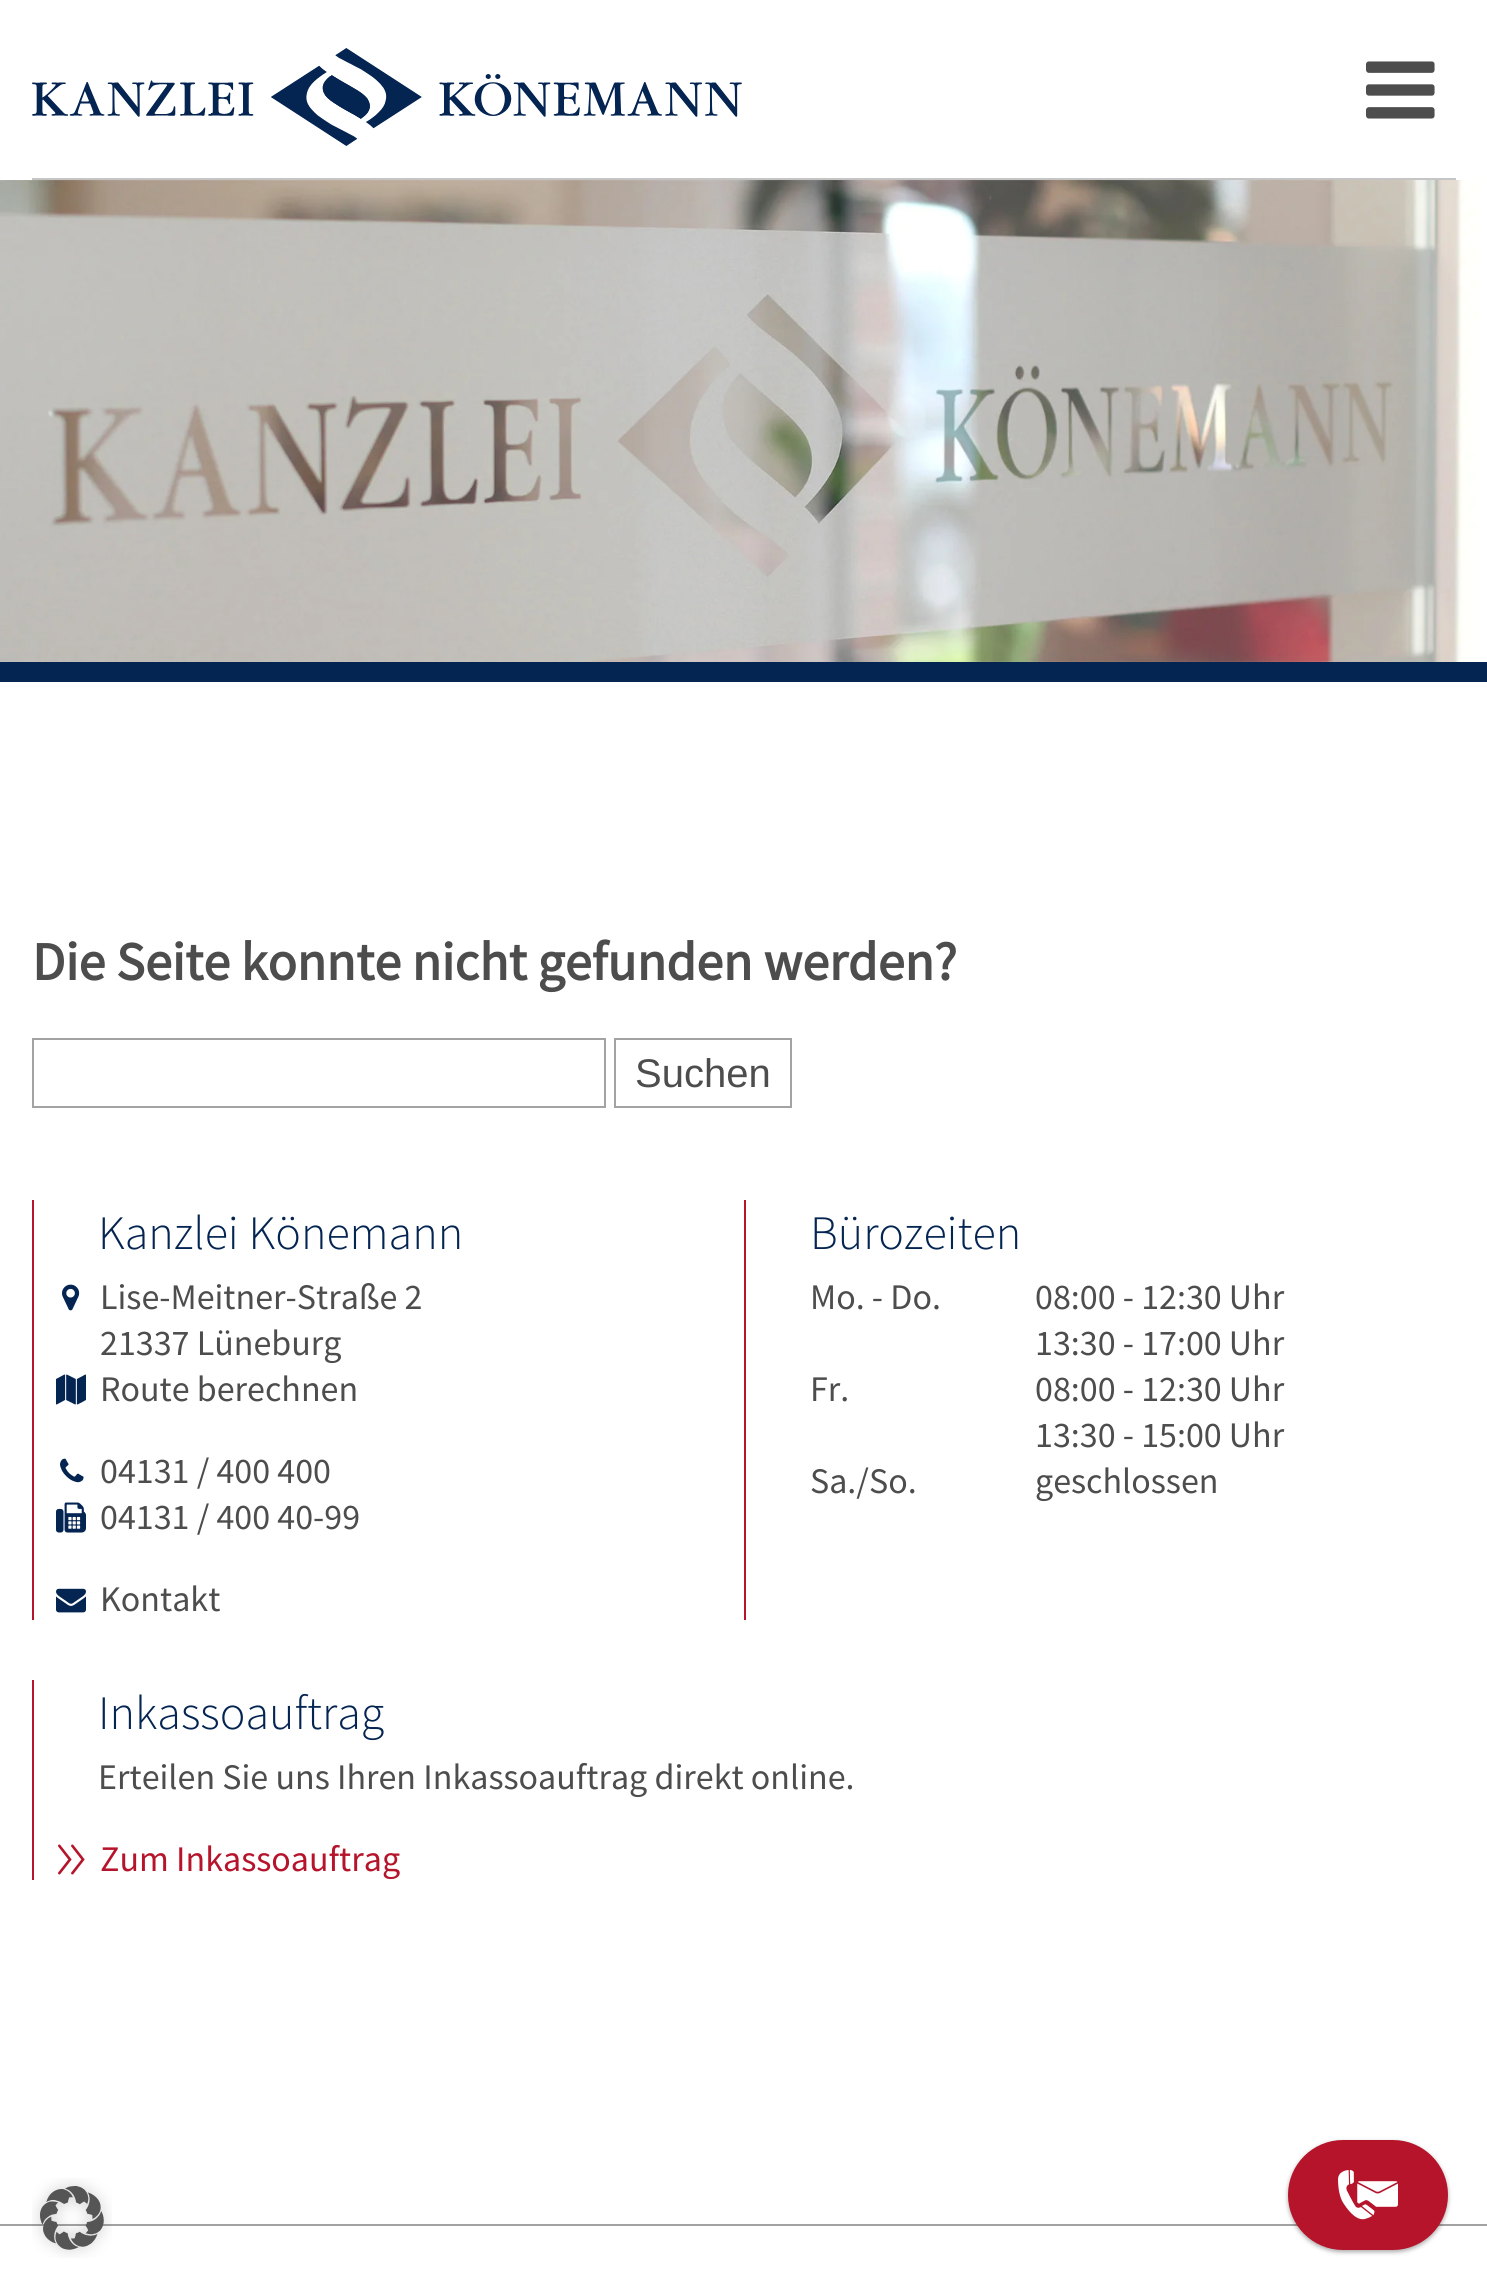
#include <cairo.h>
#include <math.h>
#include <stddef.h>


static void round_rect(cairo_t *cr, double x, double y, double w, double h, double r) {
    cairo_new_sub_path(cr);
    cairo_arc(cr, x + w - r, y + h - r, r, 0, M_PI / 2);
    cairo_arc(cr, x + r, y + h - r, r, M_PI / 2, M_PI);
    cairo_arc(cr, x + r, y + r, r, M_PI, 1.5 * M_PI);
    cairo_arc(cr, x + w - r, y + r, r, 1.5 * M_PI, 2 * M_PI);
    cairo_close_path(cr);
}

static void shadow(cairo_t *cr, double x, double y, double w, double h, double r, double blur, double alpha) {
    cairo_push_group_with_content(cr, CAIRO_CONTENT_ALPHA);
    cairo_set_operator(cr, CAIRO_OPERATOR_SOURCE);
    for (int i = 15; i >= -15 && fmin(w, h) + blur * i / 3 > 0; i -= 2) {
        double e = blur * i / 6;
        cairo_set_source_rgba(cr, 0, 0, 0, alpha * erfc((i - 1) / 8.5) / 2);
        round_rect(cr, x - e, y - e, w + 2 * e, h + 2 * e, fmax(0, fmin(r + e + blur * .6, fmin(w, h) / 2 + e)));
        cairo_fill(cr);
    }
    cairo_pattern_t *soft = cairo_pop_group(cr);
    cairo_mask(cr, soft);
    cairo_pattern_destroy(soft);
}

static void picture(cairo_t *cr, const char *path, double x, double y, double w, double h) {
    cairo_surface_t *image = cairo_image_surface_create_from_png(path);
    cairo_save(cr);
    cairo_set_source_surface(cr, image, x, y);
    cairo_rectangle(cr, x, y, w, h);
    cairo_fill(cr);
    cairo_restore(cr);
    cairo_surface_destroy(image);
}

int main(void) {
    cairo_surface_t *surface = cairo_image_surface_create(CAIRO_FORMAT_RGB24, 1487, 2289);
    cairo_t *cr = cairo_create(surface);
    cairo_font_options_t *options = cairo_font_options_create();
    cairo_font_options_set_hint_metrics(options, CAIRO_HINT_METRICS_OFF);
    cairo_font_options_set_hint_style(options, CAIRO_HINT_STYLE_NONE);
    cairo_set_font_options(cr, options);
    cairo_set_miter_limit(cr, 4);
    cairo_set_source_rgb(cr, 1, 1, 1);
    cairo_paint(cr);
    cairo_set_source_rgb(cr, 0.773, 0.773, 0.773);
    cairo_rectangle(cr, 32, 178, 1424, 2);
    cairo_fill(cr);
    picture(cr, "img1.png", 32, 48, 710, 98);
    picture(cr, "img2.png", 1366, 61, 69, 58);
    cairo_set_source_rgb(cr, 0.016, 0.141, 0.322);
    cairo_rectangle(cr, 0, 662, 1487, 20);
    cairo_fill(cr);
    picture(cr, "img3.png", 0, 180, 1479, 482);
    cairo_select_font_face(cr, "Source Sans Pro", CAIRO_FONT_SLANT_NORMAL, CAIRO_FONT_WEIGHT_BOLD);
    cairo_set_font_size(cr, 54);
    cairo_set_source_rgb(cr, 0.302, 0.302, 0.302);
    cairo_move_to(cr, 32, 980);
    cairo_show_text(cr, "Die Seite konnte nicht gefunden werden?");
    cairo_rectangle(cr, 33, 1039, 572, 68);
    cairo_set_source_rgb(cr, 0.639, 0.639, 0.639);
    cairo_stroke(cr);
    cairo_rectangle(cr, 615, 1039, 176, 68);
    cairo_stroke(cr);
    cairo_select_font_face(cr, "Liberation Sans", CAIRO_FONT_SLANT_NORMAL, CAIRO_FONT_WEIGHT_NORMAL);
    cairo_set_font_size(cr, 40);
    cairo_set_source_rgb(cr, 0.302, 0.302, 0.302);
    cairo_move_to(cr, 635, 1087);
    cairo_show_text(cr, "Suchen");
    cairo_set_source_rgb(cr, 0.71, 0.082, 0.169);
    cairo_rectangle(cr, 32, 1200, 2, 420);
    cairo_fill(cr);
    cairo_select_font_face(cr, "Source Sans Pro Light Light", CAIRO_FONT_SLANT_NORMAL, CAIRO_FONT_WEIGHT_NORMAL);
    cairo_set_font_size(cr, 48);
    cairo_set_source_rgb(cr, 0.016, 0.141, 0.322);
    cairo_move_to(cr, 98, 1249);
    cairo_show_text(cr, "Kanzlei Könemann");
    picture(cr, "img4.png", 62, 1284, 18, 27);
    cairo_select_font_face(cr, "Source Sans Pro", CAIRO_FONT_SLANT_NORMAL, CAIRO_FONT_WEIGHT_NORMAL);
    cairo_set_font_size(cr, 36);
    cairo_set_source_rgb(cr, 0.302, 0.302, 0.302);
    cairo_move_to(cr, 100, 1309);
    cairo_show_text(cr, "Lise-Meitner-Straße 2");
    cairo_move_to(cr, 100, 1355);
    cairo_show_text(cr, "21337 Lüneburg");
    picture(cr, "img5.png", 56, 1374, 30, 31);
    cairo_move_to(cr, 100, 1401);
    cairo_show_text(cr, "Route berechnen");
    picture(cr, "img6.png", 60, 1458, 24, 25);
    cairo_move_to(cr, 100, 1483);
    cairo_show_text(cr, "04131 / 400 400");
    picture(cr, "img7.png", 56, 1502, 30, 31);
    cairo_move_to(cr, 100, 1529);
    cairo_show_text(cr, "04131 / 400 40-99");
    picture(cr, "img8.png", 56, 1588, 30, 25);
    cairo_move_to(cr, 100, 1611);
    cairo_show_text(cr, "Kontakt");
    cairo_set_source_rgb(cr, 0.71, 0.082, 0.169);
    cairo_rectangle(cr, 744, 1200, 2, 420);
    cairo_fill(cr);
    cairo_select_font_face(cr, "Source Sans Pro Light Light", CAIRO_FONT_SLANT_NORMAL, CAIRO_FONT_WEIGHT_NORMAL);
    cairo_set_font_size(cr, 48);
    cairo_set_source_rgb(cr, 0.016, 0.141, 0.322);
    cairo_move_to(cr, 810, 1249);
    cairo_show_text(cr, "Bürozeiten");
    cairo_select_font_face(cr, "Source Sans Pro", CAIRO_FONT_SLANT_NORMAL, CAIRO_FONT_WEIGHT_NORMAL);
    cairo_set_font_size(cr, 36);
    cairo_set_source_rgb(cr, 0.302, 0.302, 0.302);
    cairo_move_to(cr, 810, 1309);
    cairo_show_text(cr, "Mo. - Do.");
    cairo_move_to(cr, 1035, 1309);
    cairo_show_text(cr, "08:00 - 12:30 Uhr");
    cairo_move_to(cr, 1035, 1355);
    cairo_show_text(cr, "13:30 - 17:00 Uhr");
    cairo_move_to(cr, 810, 1401);
    cairo_show_text(cr, "Fr.");
    cairo_move_to(cr, 1035, 1401);
    cairo_show_text(cr, "08:00 - 12:30 Uhr");
    cairo_move_to(cr, 1035, 1447);
    cairo_show_text(cr, "13:30 - 15:00 Uhr");
    cairo_move_to(cr, 810, 1493);
    cairo_show_text(cr, "Sa./So.");
    cairo_move_to(cr, 1035, 1493);
    cairo_show_text(cr, "geschlossen");
    cairo_set_source_rgb(cr, 0.71, 0.082, 0.169);
    cairo_rectangle(cr, 32, 1680, 2, 200);
    cairo_fill(cr);
    cairo_select_font_face(cr, "Source Sans Pro Light Light", CAIRO_FONT_SLANT_NORMAL, CAIRO_FONT_WEIGHT_NORMAL);
    cairo_set_font_size(cr, 48);
    cairo_set_source_rgb(cr, 0.016, 0.141, 0.322);
    cairo_move_to(cr, 98, 1729);
    cairo_show_text(cr, "Inkassoauftrag");
    cairo_select_font_face(cr, "Source Sans Pro", CAIRO_FONT_SLANT_NORMAL, CAIRO_FONT_WEIGHT_NORMAL);
    cairo_set_font_size(cr, 36);
    cairo_set_source_rgb(cr, 0.302, 0.302, 0.302);
    cairo_move_to(cr, 98, 1789);
    cairo_show_text(cr, "Erteilen Sie uns Ihren Inkassoauftrag direkt online.");
    picture(cr, "img9.png", 58, 1844, 27, 31);
    cairo_set_source_rgb(cr, 0.71, 0.082, 0.169);
    cairo_move_to(cr, 100, 1871);
    cairo_show_text(cr, "Zum Inkassoauftrag");
    cairo_set_source_rgb(cr, 0.639, 0.639, 0.639);
    cairo_rectangle(cr, 0, 2224, 1487, 2);
    cairo_fill(cr);
    picture(cr, "img10.png", 32, 2178, 80, 80);
    cairo_set_source_rgb(cr, 0, 0, 0);
    shadow(cr, 1288, 2142, 160, 110, 55, 2, 0.24);
    shadow(cr, 1288, 2142, 160, 110, 55, 3, 0.12);
    cairo_set_source_rgb(cr, 0.71, 0.082, 0.169);
    round_rect(cr, 1288, 2140, 160, 110, 55);
    cairo_fill(cr);
    picture(cr, "img11.png", 1338, 2170, 60, 50);
    cairo_surface_write_to_png(surface, "page.png");
    cairo_font_options_destroy(options);
    cairo_destroy(cr);
    cairo_surface_destroy(surface);
    return 0;
}
